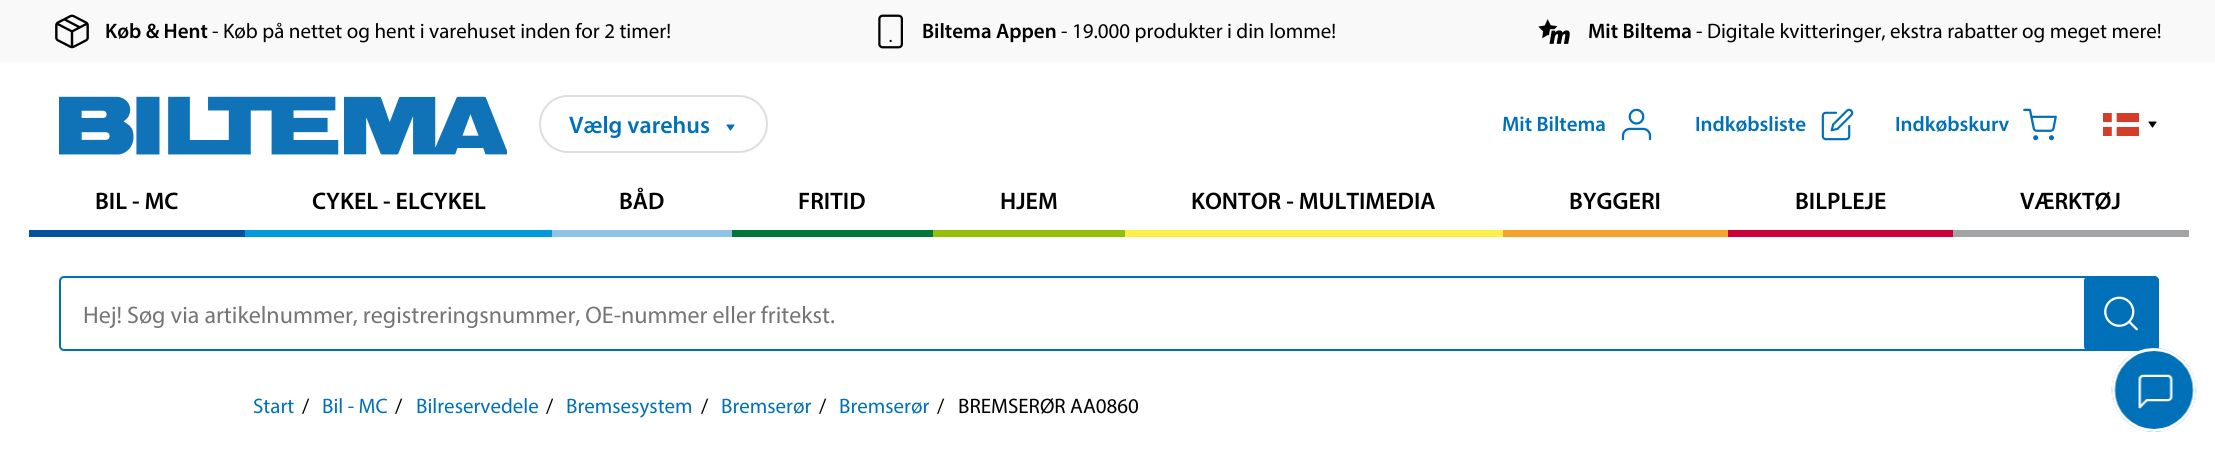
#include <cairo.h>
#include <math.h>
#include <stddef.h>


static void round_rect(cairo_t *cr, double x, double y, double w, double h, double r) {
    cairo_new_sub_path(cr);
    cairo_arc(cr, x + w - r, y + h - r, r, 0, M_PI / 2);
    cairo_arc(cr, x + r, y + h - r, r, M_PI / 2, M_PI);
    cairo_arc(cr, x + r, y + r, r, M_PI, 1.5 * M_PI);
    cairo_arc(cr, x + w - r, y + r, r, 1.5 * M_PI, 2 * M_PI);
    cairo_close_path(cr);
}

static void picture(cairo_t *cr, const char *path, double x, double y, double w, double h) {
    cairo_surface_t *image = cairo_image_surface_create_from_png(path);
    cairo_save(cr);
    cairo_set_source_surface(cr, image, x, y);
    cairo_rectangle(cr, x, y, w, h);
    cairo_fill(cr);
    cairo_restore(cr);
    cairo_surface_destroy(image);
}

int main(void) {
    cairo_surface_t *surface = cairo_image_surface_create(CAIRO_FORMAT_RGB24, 2215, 460);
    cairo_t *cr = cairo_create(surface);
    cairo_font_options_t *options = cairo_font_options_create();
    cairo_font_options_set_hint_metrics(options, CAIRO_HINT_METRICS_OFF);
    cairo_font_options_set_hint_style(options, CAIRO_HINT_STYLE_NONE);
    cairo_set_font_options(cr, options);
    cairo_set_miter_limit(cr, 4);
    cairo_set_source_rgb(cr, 1, 1, 1);
    cairo_paint(cr);
    cairo_set_source_rgb(cr, 0.973, 0.973, 0.973);
    cairo_rectangle(cr, 0, 0, 2215, 62);
    cairo_fill(cr);
    picture(cr, "img1.png", 55, 14, 34, 35);
    cairo_select_font_face(cr, "Myriad SemiBold", CAIRO_FONT_SLANT_NORMAL, CAIRO_FONT_WEIGHT_NORMAL);
    cairo_set_font_size(cr, 21);
    cairo_set_source_rgb(cr, 0, 0, 0);
    cairo_move_to(cr, 105, 38);
    cairo_show_text(cr, "Køb & Hent");
    cairo_select_font_face(cr, "Myriad", CAIRO_FONT_SLANT_NORMAL, CAIRO_FONT_WEIGHT_NORMAL);
    cairo_move_to(cr, 212, 38);
    cairo_show_text(cr, "- Køb på nettet og hent i varehuset inden for 2 timer!");
    picture(cr, "img2.png", 878, 14, 25, 35);
    cairo_select_font_face(cr, "Myriad SemiBold", CAIRO_FONT_SLANT_NORMAL, CAIRO_FONT_WEIGHT_NORMAL);
    cairo_move_to(cr, 922, 38);
    cairo_show_text(cr, "Biltema Appen");
    cairo_select_font_face(cr, "Myriad", CAIRO_FONT_SLANT_NORMAL, CAIRO_FONT_WEIGHT_NORMAL);
    cairo_move_to(cr, 1061, 38);
    cairo_show_text(cr, "- 19.000 produkter i din lomme!");
    picture(cr, "img3.png", 1538, 19, 32, 25);
    cairo_select_font_face(cr, "Myriad SemiBold", CAIRO_FONT_SLANT_NORMAL, CAIRO_FONT_WEIGHT_NORMAL);
    cairo_move_to(cr, 1588, 38);
    cairo_show_text(cr, "Mit Biltema");
    cairo_select_font_face(cr, "Myriad", CAIRO_FONT_SLANT_NORMAL, CAIRO_FONT_WEIGHT_NORMAL);
    cairo_move_to(cr, 1696, 38);
    cairo_show_text(cr, "- Digitale kvitteringer, ekstra rabatter og meget mere!");
    picture(cr, "img4.png", 59, 96, 448, 59);
    round_rect(cr, 540, 96, 227, 56, 28);
    cairo_set_source_rgb(cr, 0.871, 0.871, 0.863);
    cairo_stroke(cr);
    cairo_select_font_face(cr, "Myriad SemiBold", CAIRO_FONT_SLANT_NORMAL, CAIRO_FONT_WEIGHT_NORMAL);
    cairo_set_font_size(cr, 24);
    cairo_set_source_rgb(cr, 0, 0.443, 0.725);
    cairo_move_to(cr, 569, 133);
    cairo_show_text(cr, "Vælg varehus");
    picture(cr, "img5.png", 726, 124, 9, 7);
    cairo_set_font_size(cr, 21);
    cairo_move_to(cr, 1502, 131);
    cairo_show_text(cr, "Mit Biltema");
    picture(cr, "img6.png", 1621, 108, 31, 33);
    cairo_move_to(cr, 1695, 131);
    cairo_show_text(cr, "Indkøbsliste");
    picture(cr, "img7.png", 1821, 108, 33, 33);
    cairo_move_to(cr, 1895, 131);
    cairo_show_text(cr, "Indkøbskurv");
    picture(cr, "img8.png", 2023, 108, 34, 33);
    picture(cr, "img9.png", 2103, 113, 36, 23);
    picture(cr, "img10.png", 2148, 121, 9, 7);
    cairo_set_source_rgb(cr, 0, 0.318, 0.62);
    cairo_rectangle(cr, 29, 230, 216, 7);
    cairo_fill(cr);
    cairo_set_font_size(cr, 24);
    cairo_set_source_rgb(cr, 0, 0, 0);
    cairo_move_to(cr, 95, 209);
    cairo_show_text(cr, "BIL - MC");
    cairo_set_source_rgb(cr, 0, 0.6, 0.867);
    cairo_rectangle(cr, 245, 230, 307, 7);
    cairo_fill(cr);
    cairo_set_source_rgb(cr, 0, 0, 0);
    cairo_move_to(cr, 312, 209);
    cairo_show_text(cr, "CYKEL - ELCYKEL");
    cairo_set_source_rgb(cr, 0.565, 0.769, 0.906);
    cairo_rectangle(cr, 552, 230, 180, 7);
    cairo_fill(cr);
    cairo_set_source_rgb(cr, 0, 0, 0);
    cairo_move_to(cr, 619, 209);
    cairo_show_text(cr, "BÅD");
    cairo_set_source_rgb(cr, 0, 0.463, 0.231);
    cairo_rectangle(cr, 732, 230, 201, 7);
    cairo_fill(cr);
    cairo_set_source_rgb(cr, 0, 0, 0);
    cairo_move_to(cr, 798, 209);
    cairo_show_text(cr, "FRITID");
    cairo_set_source_rgb(cr, 0.592, 0.745, 0.051);
    cairo_rectangle(cr, 933, 230, 192, 7);
    cairo_fill(cr);
    cairo_set_source_rgb(cr, 0, 0, 0);
    cairo_move_to(cr, 1000, 209);
    cairo_show_text(cr, "HJEM");
    cairo_set_source_rgb(cr, 1, 0.941, 0.282);
    cairo_rectangle(cr, 1125, 230, 378, 7);
    cairo_fill(cr);
    cairo_set_source_rgb(cr, 0, 0, 0);
    cairo_move_to(cr, 1191, 209);
    cairo_show_text(cr, "KONTOR - MULTIMEDIA");
    cairo_set_source_rgb(cr, 0.961, 0.639, 0.18);
    cairo_rectangle(cr, 1503, 230, 225, 7);
    cairo_fill(cr);
    cairo_set_source_rgb(cr, 0, 0, 0);
    cairo_move_to(cr, 1569, 209);
    cairo_show_text(cr, "BYGGERI");
    cairo_set_source_rgb(cr, 0.792, 0, 0.224);
    cairo_rectangle(cr, 1728, 230, 225, 7);
    cairo_fill(cr);
    cairo_set_source_rgb(cr, 0, 0, 0);
    cairo_move_to(cr, 1795, 209);
    cairo_show_text(cr, "BILPLEJE");
    cairo_set_source_rgb(cr, 0.639, 0.643, 0.651);
    cairo_rectangle(cr, 1953, 230, 236, 7);
    cairo_fill(cr);
    cairo_set_source_rgb(cr, 0, 0, 0);
    cairo_move_to(cr, 2020, 209);
    cairo_show_text(cr, "VÆRKTØJ");
    round_rect(cr, 60, 277, 2098, 73, 4);
    cairo_set_source_rgb(cr, 0, 0.443, 0.725);
    cairo_stroke(cr);
    cairo_select_font_face(cr, "Myriad", CAIRO_FONT_SLANT_NORMAL, CAIRO_FONT_WEIGHT_NORMAL);
    cairo_set_source_rgb(cr, 0.459, 0.459, 0.459);
    cairo_move_to(cr, 83, 323);
    cairo_show_text(cr, "Hej! Søg via artikelnummer, registreringsnummer, OE-nummer eller fritekst.");
    cairo_set_source_rgb(cr, 0, 0.443, 0.725);
    round_rect(cr, 2084, 276, 75, 75, 5);
    cairo_fill(cr);
    picture(cr, "img11.png", 2104, 296, 34, 35);
    cairo_set_font_size(cr, 21);
    cairo_move_to(cr, 253, 413);
    cairo_show_text(cr, "Start");
    cairo_set_source_rgb(cr, 0, 0, 0);
    cairo_move_to(cr, 302, 413);
    cairo_show_text(cr, "/");
    cairo_set_source_rgb(cr, 0, 0.443, 0.725);
    cairo_move_to(cr, 322, 413);
    cairo_show_text(cr, "Bil - MC");
    cairo_set_source_rgb(cr, 0, 0, 0);
    cairo_move_to(cr, 395, 413);
    cairo_show_text(cr, "/");
    cairo_set_source_rgb(cr, 0, 0.443, 0.725);
    cairo_move_to(cr, 416, 413);
    cairo_show_text(cr, "Bilreservedele");
    cairo_set_source_rgb(cr, 0, 0, 0);
    cairo_move_to(cr, 546, 413);
    cairo_show_text(cr, "/");
    cairo_set_source_rgb(cr, 0, 0.443, 0.725);
    cairo_move_to(cr, 566, 413);
    cairo_show_text(cr, "Bremsesystem");
    cairo_set_source_rgb(cr, 0, 0, 0);
    cairo_move_to(cr, 701, 413);
    cairo_show_text(cr, "/");
    cairo_set_source_rgb(cr, 0, 0.443, 0.725);
    cairo_move_to(cr, 721, 413);
    cairo_show_text(cr, "Bremserør");
    cairo_set_source_rgb(cr, 0, 0, 0);
    cairo_move_to(cr, 819, 413);
    cairo_show_text(cr, "/");
    cairo_set_source_rgb(cr, 0, 0.443, 0.725);
    cairo_move_to(cr, 839, 413);
    cairo_show_text(cr, "Bremserør");
    cairo_set_source_rgb(cr, 0, 0, 0);
    cairo_move_to(cr, 937, 413);
    cairo_show_text(cr, "/");
    cairo_move_to(cr, 958, 413);
    cairo_show_text(cr, "BREMSERØR AA0860");
    picture(cr, "img12.png", 2111, 348, 86, 84);
    cairo_surface_write_to_png(surface, "page.png");
    cairo_font_options_destroy(options);
    cairo_destroy(cr);
    cairo_surface_destroy(surface);
    return 0;
}
